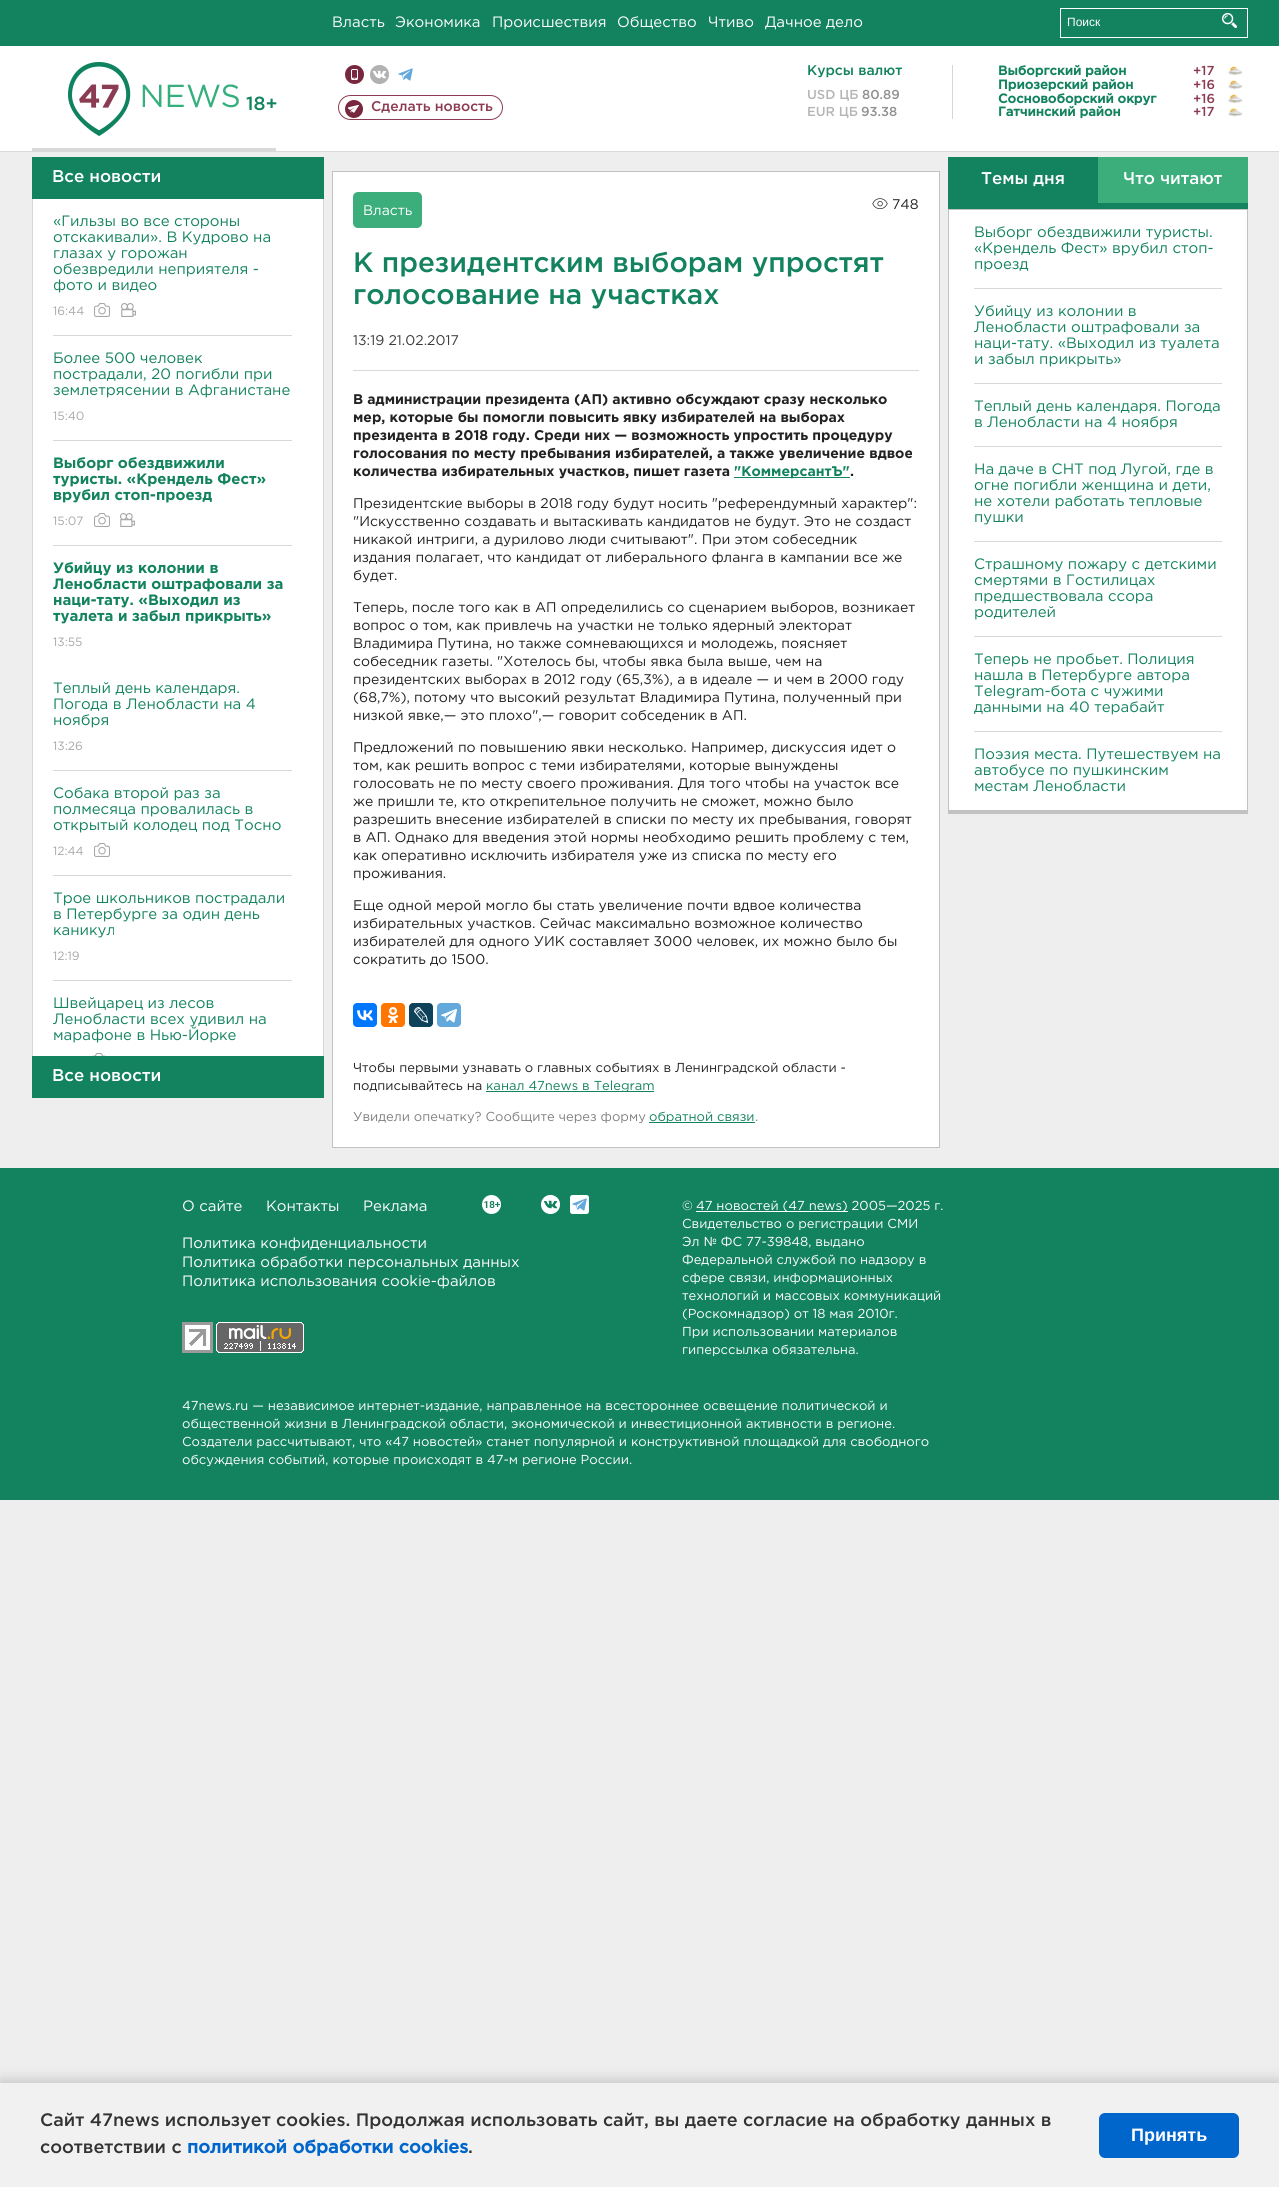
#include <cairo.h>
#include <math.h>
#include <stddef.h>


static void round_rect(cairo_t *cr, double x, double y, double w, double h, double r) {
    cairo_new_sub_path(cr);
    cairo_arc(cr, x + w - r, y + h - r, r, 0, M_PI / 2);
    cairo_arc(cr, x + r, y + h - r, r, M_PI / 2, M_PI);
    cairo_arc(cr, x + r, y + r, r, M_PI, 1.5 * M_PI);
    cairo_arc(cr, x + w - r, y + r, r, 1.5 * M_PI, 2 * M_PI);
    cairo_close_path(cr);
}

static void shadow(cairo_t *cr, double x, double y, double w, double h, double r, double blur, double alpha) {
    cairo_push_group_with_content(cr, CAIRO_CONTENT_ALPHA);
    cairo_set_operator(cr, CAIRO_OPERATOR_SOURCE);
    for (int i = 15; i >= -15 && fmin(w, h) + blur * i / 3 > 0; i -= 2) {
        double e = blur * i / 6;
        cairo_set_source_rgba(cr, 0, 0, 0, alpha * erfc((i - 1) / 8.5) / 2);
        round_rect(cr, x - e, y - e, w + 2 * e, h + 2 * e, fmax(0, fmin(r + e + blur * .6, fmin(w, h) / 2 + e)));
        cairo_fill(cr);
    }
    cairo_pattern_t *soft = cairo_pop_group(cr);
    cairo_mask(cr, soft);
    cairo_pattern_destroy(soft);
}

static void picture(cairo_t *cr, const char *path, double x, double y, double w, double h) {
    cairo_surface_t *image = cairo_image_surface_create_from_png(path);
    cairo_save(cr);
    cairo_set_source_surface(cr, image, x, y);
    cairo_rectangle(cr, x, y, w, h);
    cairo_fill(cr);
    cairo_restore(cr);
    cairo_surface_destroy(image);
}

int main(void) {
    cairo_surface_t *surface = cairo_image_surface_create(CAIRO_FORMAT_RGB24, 1279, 2187);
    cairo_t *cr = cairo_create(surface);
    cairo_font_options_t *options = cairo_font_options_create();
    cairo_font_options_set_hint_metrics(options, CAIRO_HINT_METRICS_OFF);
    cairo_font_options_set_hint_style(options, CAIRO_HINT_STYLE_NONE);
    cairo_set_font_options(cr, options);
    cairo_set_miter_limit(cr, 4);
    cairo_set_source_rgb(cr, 0.933, 0.933, 0.933);
    cairo_paint(cr);
    cairo_set_source_rgb(cr, 0.075, 0.51, 0.373);
    cairo_rectangle(cr, 0, 0, 1279, 46);
    cairo_fill(cr);
    cairo_select_font_face(cr, "Gotham", CAIRO_FONT_SLANT_NORMAL, CAIRO_FONT_WEIGHT_NORMAL);
    cairo_set_font_size(cr, 15);
    cairo_set_source_rgb(cr, 1, 1, 1);
    cairo_move_to(cr, 332, 27);
    cairo_show_text(cr, "Власть");
    cairo_move_to(cr, 395, 27);
    cairo_show_text(cr, "Экономика");
    cairo_move_to(cr, 492, 27);
    cairo_show_text(cr, "Происшествия");
    cairo_move_to(cr, 617, 27);
    cairo_show_text(cr, "Общество");
    cairo_move_to(cr, 708, 27);
    cairo_show_text(cr, "Чтиво");
    cairo_move_to(cr, 765, 27);
    cairo_show_text(cr, "Дачное дело");
    cairo_rectangle(cr, 1060.5, 8.5, 187, 29);
    cairo_set_line_width(cr, 1);
    cairo_stroke(cr);
    cairo_select_font_face(cr, "Liberation Sans", CAIRO_FONT_SLANT_NORMAL, CAIRO_FONT_WEIGHT_NORMAL);
    cairo_set_font_size(cr, 12);
    cairo_move_to(cr, 1067, 26);
    cairo_show_text(cr, "Поиск");
    picture(cr, "img1.png", 1222, 13, 15, 15);
    cairo_rectangle(cr, 0, 46, 1279, 105);
    cairo_fill(cr);
    cairo_set_source_rgb(cr, 0.855, 0.851, 0.851);
    cairo_rectangle(cr, 0, 151, 1279, 1);
    cairo_fill(cr);
    cairo_rectangle(cr, 32, 148, 244, 3);
    cairo_fill(cr);
    picture(cr, "img2.png", 68, 62, 171, 74);
    cairo_select_font_face(cr, "Gotham Medium", CAIRO_FONT_SLANT_NORMAL, CAIRO_FONT_WEIGHT_NORMAL);
    cairo_set_font_size(cr, 14);
    cairo_set_source_rgb(cr, 0.075, 0.51, 0.373);
    cairo_move_to(cr, 807, 75);
    cairo_show_text(cr, "Курсы валют");
    cairo_set_font_size(cr, 13);
    cairo_set_source_rgb(cr, 0.71, 0.71, 0.71);
    cairo_move_to(cr, 807, 99);
    cairo_show_text(cr, "USD ЦБ");
    cairo_set_source_rgb(cr, 0.569, 0.569, 0.569);
    cairo_move_to(cr, 862, 99);
    cairo_show_text(cr, "80.89");
    cairo_set_source_rgb(cr, 0.71, 0.71, 0.71);
    cairo_move_to(cr, 807, 116);
    cairo_show_text(cr, "EUR ЦБ");
    cairo_set_source_rgb(cr, 0.569, 0.569, 0.569);
    cairo_move_to(cr, 861, 116);
    cairo_show_text(cr, "93.38");
    cairo_set_source_rgb(cr, 0.839, 0.839, 0.839);
    cairo_rectangle(cr, 952, 65, 1, 54);
    cairo_fill(cr);
    cairo_select_font_face(cr, "Gotham", CAIRO_FONT_SLANT_NORMAL, CAIRO_FONT_WEIGHT_BOLD);
    cairo_set_source_rgb(cr, 0.075, 0.51, 0.373);
    cairo_move_to(cr, 998, 75);
    cairo_show_text(cr, "Выборгский район");
    cairo_select_font_face(cr, "Gotham Medium", CAIRO_FONT_SLANT_NORMAL, CAIRO_FONT_WEIGHT_NORMAL);
    cairo_set_source_rgb(cr, 0.549, 0.231, 0.322);
    cairo_move_to(cr, 1193, 75);
    cairo_show_text(cr, "+17");
    picture(cr, "img3.png", 1228, 66, 15, 10);
    cairo_select_font_face(cr, "Gotham", CAIRO_FONT_SLANT_NORMAL, CAIRO_FONT_WEIGHT_BOLD);
    cairo_set_source_rgb(cr, 0.075, 0.51, 0.373);
    cairo_move_to(cr, 998, 89);
    cairo_show_text(cr, "Приозерский район");
    cairo_select_font_face(cr, "Gotham Medium", CAIRO_FONT_SLANT_NORMAL, CAIRO_FONT_WEIGHT_NORMAL);
    cairo_set_source_rgb(cr, 0.549, 0.231, 0.322);
    cairo_move_to(cr, 1193, 89);
    cairo_show_text(cr, "+16");
    picture(cr, "img3.png", 1228, 80, 15, 10);
    cairo_select_font_face(cr, "Gotham", CAIRO_FONT_SLANT_NORMAL, CAIRO_FONT_WEIGHT_BOLD);
    cairo_set_source_rgb(cr, 0.075, 0.51, 0.373);
    cairo_move_to(cr, 998, 103);
    cairo_show_text(cr, "Сосновоборский округ");
    cairo_select_font_face(cr, "Gotham Medium", CAIRO_FONT_SLANT_NORMAL, CAIRO_FONT_WEIGHT_NORMAL);
    cairo_set_source_rgb(cr, 0.549, 0.231, 0.322);
    cairo_move_to(cr, 1193, 103);
    cairo_show_text(cr, "+16");
    picture(cr, "img3.png", 1228, 94, 15, 10);
    cairo_select_font_face(cr, "Gotham", CAIRO_FONT_SLANT_NORMAL, CAIRO_FONT_WEIGHT_BOLD);
    cairo_set_source_rgb(cr, 0.075, 0.51, 0.373);
    cairo_move_to(cr, 998, 116);
    cairo_show_text(cr, "Гатчинский район");
    cairo_select_font_face(cr, "Gotham Medium", CAIRO_FONT_SLANT_NORMAL, CAIRO_FONT_WEIGHT_NORMAL);
    cairo_set_source_rgb(cr, 0.549, 0.231, 0.322);
    cairo_move_to(cr, 1193, 116);
    cairo_show_text(cr, "+17");
    picture(cr, "img4.png", 1228, 107, 15, 10);
    cairo_set_font_size(cr, 19);
    cairo_set_source_rgb(cr, 0.075, 0.51, 0.373);
    cairo_move_to(cr, 246, 110);
    cairo_show_text(cr, "18+");
    picture(cr, "img5.png", 345, 65, 19, 19);
    picture(cr, "img6.png", 370, 65, 19, 19);
    picture(cr, "img7.png", 398, 68, 15, 13);
    picture(cr, "img8.png", 345, 100, 18, 18);
    round_rect(cr, 338.5, 95.5, 164, 24, 12);
    cairo_set_source_rgb(cr, 0.549, 0.231, 0.322);
    cairo_stroke(cr);
    cairo_set_font_size(cr, 14);
    cairo_move_to(cr, 371, 111);
    cairo_show_text(cr, "Сделать новость");
    cairo_set_source_rgb(cr, 0.075, 0.51, 0.373);
    cairo_rectangle(cr, 32, 157, 292, 42);
    cairo_fill(cr);
    cairo_set_font_size(cr, 17);
    cairo_set_source_rgb(cr, 1, 1, 1);
    cairo_move_to(cr, 52, 182);
    cairo_show_text(cr, "Все новости");
    cairo_rectangle(cr, 33, 199, 290, 857);
    cairo_fill(cr);
    cairo_set_source_rgb(cr, 0.839, 0.839, 0.839);
    cairo_rectangle(cr, 323, 199, 1, 857);
    cairo_fill(cr);
    cairo_rectangle(cr, 32, 199, 1, 857);
    cairo_fill(cr);
    cairo_set_source_rgb(cr, 0.847, 0.847, 0.847);
    cairo_rectangle(cr, 53, 335, 239, 1);
    cairo_fill(cr);
    cairo_select_font_face(cr, "Gotham", CAIRO_FONT_SLANT_NORMAL, CAIRO_FONT_WEIGHT_NORMAL);
    cairo_set_font_size(cr, 15);
    cairo_set_source_rgb(cr, 0.075, 0.51, 0.373);
    cairo_move_to(cr, 53, 226);
    cairo_show_text(cr, "«Гильзы во все стороны");
    cairo_move_to(cr, 53, 242);
    cairo_show_text(cr, "отскакивали». В Кудрово на");
    cairo_move_to(cr, 53, 258);
    cairo_show_text(cr, "глазах у горожан");
    cairo_move_to(cr, 53, 274);
    cairo_show_text(cr, "обезвредили неприятеля -");
    cairo_move_to(cr, 53, 290);
    cairo_show_text(cr, "фото и видео");
    cairo_set_font_size(cr, 12);
    cairo_set_source_rgb(cr, 0.655, 0.655, 0.655);
    cairo_move_to(cr, 53, 315);
    cairo_show_text(cr, "16:44");
    picture(cr, "img9.png", 94, 303, 16, 14);
    picture(cr, "img10.png", 121, 303, 15, 14);
    cairo_set_source_rgb(cr, 0.847, 0.847, 0.847);
    cairo_rectangle(cr, 53, 440, 239, 1);
    cairo_fill(cr);
    cairo_set_font_size(cr, 15);
    cairo_set_source_rgb(cr, 0.075, 0.51, 0.373);
    cairo_move_to(cr, 53, 363);
    cairo_show_text(cr, "Более 500 человек");
    cairo_move_to(cr, 53, 379);
    cairo_show_text(cr, "пострадали, 20 погибли при");
    cairo_move_to(cr, 53, 395);
    cairo_show_text(cr, "землетрясении в Афганистане");
    cairo_set_font_size(cr, 12);
    cairo_set_source_rgb(cr, 0.655, 0.655, 0.655);
    cairo_move_to(cr, 53, 420);
    cairo_show_text(cr, "15:40");
    cairo_set_source_rgb(cr, 0.847, 0.847, 0.847);
    cairo_rectangle(cr, 53, 545, 239, 1);
    cairo_fill(cr);
    cairo_select_font_face(cr, "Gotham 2", CAIRO_FONT_SLANT_NORMAL, CAIRO_FONT_WEIGHT_BOLD);
    cairo_set_font_size(cr, 15);
    cairo_set_source_rgb(cr, 0.075, 0.51, 0.373);
    cairo_move_to(cr, 53, 468);
    cairo_show_text(cr, "Выборг обездвижили");
    cairo_move_to(cr, 53, 484);
    cairo_show_text(cr, "туристы. «Крендель Фест»");
    cairo_move_to(cr, 53, 500);
    cairo_show_text(cr, "врубил стоп-проезд");
    cairo_select_font_face(cr, "Gotham", CAIRO_FONT_SLANT_NORMAL, CAIRO_FONT_WEIGHT_NORMAL);
    cairo_set_font_size(cr, 12);
    cairo_set_source_rgb(cr, 0.655, 0.655, 0.655);
    cairo_move_to(cr, 53, 525);
    cairo_show_text(cr, "15:07");
    picture(cr, "img9.png", 94, 513, 16, 14);
    picture(cr, "img10.png", 120, 513, 15, 14);
    cairo_select_font_face(cr, "Gotham 2", CAIRO_FONT_SLANT_NORMAL, CAIRO_FONT_WEIGHT_BOLD);
    cairo_set_font_size(cr, 15);
    cairo_set_source_rgb(cr, 0.075, 0.51, 0.373);
    cairo_move_to(cr, 53, 573);
    cairo_show_text(cr, "Убийцу из колонии в");
    cairo_move_to(cr, 53, 589);
    cairo_show_text(cr, "Ленобласти оштрафовали за");
    cairo_move_to(cr, 53, 605);
    cairo_show_text(cr, "наци-тату. «Выходил из");
    cairo_move_to(cr, 53, 621);
    cairo_show_text(cr, "туалета и забыл прикрыть»");
    cairo_select_font_face(cr, "Gotham", CAIRO_FONT_SLANT_NORMAL, CAIRO_FONT_WEIGHT_NORMAL);
    cairo_set_font_size(cr, 12);
    cairo_set_source_rgb(cr, 0.655, 0.655, 0.655);
    cairo_move_to(cr, 53, 646);
    cairo_show_text(cr, "13:55");
    cairo_set_source_rgb(cr, 0.847, 0.847, 0.847);
    cairo_rectangle(cr, 53, 770, 239, 1);
    cairo_fill(cr);
    cairo_set_font_size(cr, 15);
    cairo_set_source_rgb(cr, 0.075, 0.51, 0.373);
    cairo_move_to(cr, 53, 693);
    cairo_show_text(cr, "Теплый день календаря.");
    cairo_move_to(cr, 53, 709);
    cairo_show_text(cr, "Погода в Ленобласти на 4");
    cairo_move_to(cr, 53, 725);
    cairo_show_text(cr, "ноября");
    cairo_set_font_size(cr, 12);
    cairo_set_source_rgb(cr, 0.655, 0.655, 0.655);
    cairo_move_to(cr, 53, 750);
    cairo_show_text(cr, "13:26");
    cairo_set_source_rgb(cr, 0.847, 0.847, 0.847);
    cairo_rectangle(cr, 53, 875, 239, 1);
    cairo_fill(cr);
    cairo_set_font_size(cr, 15);
    cairo_set_source_rgb(cr, 0.075, 0.51, 0.373);
    cairo_move_to(cr, 53, 798);
    cairo_show_text(cr, "Собака второй раз за");
    cairo_move_to(cr, 53, 814);
    cairo_show_text(cr, "полмесяца провалилась в");
    cairo_move_to(cr, 53, 830);
    cairo_show_text(cr, "открытый колодец под Тосно");
    cairo_set_font_size(cr, 12);
    cairo_set_source_rgb(cr, 0.655, 0.655, 0.655);
    cairo_move_to(cr, 53, 855);
    cairo_show_text(cr, "12:44");
    picture(cr, "img9.png", 94, 843, 16, 14);
    cairo_set_source_rgb(cr, 0.847, 0.847, 0.847);
    cairo_rectangle(cr, 53, 980, 239, 1);
    cairo_fill(cr);
    cairo_set_font_size(cr, 15);
    cairo_set_source_rgb(cr, 0.075, 0.51, 0.373);
    cairo_move_to(cr, 53, 903);
    cairo_show_text(cr, "Трое школьников пострадали");
    cairo_move_to(cr, 53, 919);
    cairo_show_text(cr, "в Петербурге за один день");
    cairo_move_to(cr, 53, 935);
    cairo_show_text(cr, "каникул");
    cairo_set_font_size(cr, 12);
    cairo_set_source_rgb(cr, 0.655, 0.655, 0.655);
    cairo_move_to(cr, 53, 960);
    cairo_show_text(cr, "12:19");
    cairo_set_font_size(cr, 15);
    cairo_set_source_rgb(cr, 0.075, 0.51, 0.373);
    cairo_move_to(cr, 53, 1008);
    cairo_show_text(cr, "Швейцарец из лесов");
    cairo_move_to(cr, 53, 1024);
    cairo_show_text(cr, "Ленобласти всех удивил на");
    cairo_move_to(cr, 53, 1040);
    cairo_show_text(cr, "марафоне в Нью-Йорке");
    picture(cr, "img11.png", 92, 1053, 14, 3);
    cairo_rectangle(cr, 32, 1056, 292, 42);
    cairo_fill(cr);
    cairo_select_font_face(cr, "Gotham Medium", CAIRO_FONT_SLANT_NORMAL, CAIRO_FONT_WEIGHT_NORMAL);
    cairo_set_font_size(cr, 17);
    cairo_set_source_rgb(cr, 1, 1, 1);
    cairo_move_to(cr, 52, 1081);
    cairo_show_text(cr, "Все новости");
    cairo_rectangle(cr, 332.5, 171.5, 607, 976);
    cairo_fill_preserve(cr);
    cairo_set_source_rgb(cr, 0.761, 0.761, 0.761);
    cairo_stroke(cr);
    cairo_set_source_rgb(cr, 0.855, 0.851, 0.851);
    cairo_rectangle(cr, 353, 370, 566, 1);
    cairo_fill(cr);
    cairo_set_source_rgb(cr, 0.231, 0.682, 0.486);
    round_rect(cr, 353, 192, 69, 36, 5);
    cairo_fill(cr);
    cairo_select_font_face(cr, "Gotham", CAIRO_FONT_SLANT_NORMAL, CAIRO_FONT_WEIGHT_NORMAL);
    cairo_set_font_size(cr, 14);
    cairo_set_source_rgb(cr, 1, 1, 1);
    cairo_move_to(cr, 363, 215);
    cairo_show_text(cr, "Власть");
    picture(cr, "img12.png", 872, 198, 16, 11);
    cairo_set_source_rgb(cr, 0.133, 0.133, 0.133);
    cairo_move_to(cr, 892, 209);
    cairo_show_text(cr, "748");
    cairo_select_font_face(cr, "Gotham Medium", CAIRO_FONT_SLANT_NORMAL, CAIRO_FONT_WEIGHT_NORMAL);
    cairo_set_font_size(cr, 28);
    cairo_set_source_rgb(cr, 0.075, 0.51, 0.373);
    cairo_move_to(cr, 353, 272);
    cairo_show_text(cr, "К президентским выборам упростят");
    cairo_move_to(cr, 353, 304);
    cairo_show_text(cr, "голосование на участках");
    cairo_select_font_face(cr, "Gotham", CAIRO_FONT_SLANT_NORMAL, CAIRO_FONT_WEIGHT_NORMAL);
    cairo_set_font_size(cr, 14);
    cairo_set_source_rgb(cr, 0.235, 0.235, 0.235);
    cairo_move_to(cr, 353, 345);
    cairo_show_text(cr, "13:19 21.02.2017");
    cairo_select_font_face(cr, "Gotham 2", CAIRO_FONT_SLANT_NORMAL, CAIRO_FONT_WEIGHT_BOLD);
    cairo_set_source_rgb(cr, 0.133, 0.133, 0.133);
    cairo_move_to(cr, 353, 404);
    cairo_show_text(cr, "В администрации президента (АП) активно обсуждают сразу несколько");
    cairo_move_to(cr, 353, 422);
    cairo_show_text(cr, "мер, которые бы помогли повысить явку избирателей на выборах");
    cairo_move_to(cr, 353, 440);
    cairo_show_text(cr, "президента в 2018 году. Среди них — возможность упростить процедуру");
    cairo_move_to(cr, 353, 458);
    cairo_show_text(cr, "голосования по месту пребывания избирателей, а также увеличение вдвое");
    cairo_move_to(cr, 353, 476);
    cairo_show_text(cr, "количества избирательных участков, пишет газета");
    cairo_set_source_rgb(cr, 0.075, 0.51, 0.373);
    cairo_rectangle(cr, 734, 477, 116, 1);
    cairo_fill(cr);
    cairo_move_to(cr, 734, 476);
    cairo_show_text(cr, "\"КоммерсантЪ\"");
    cairo_set_source_rgb(cr, 0.133, 0.133, 0.133);
    cairo_move_to(cr, 850, 476);
    cairo_show_text(cr, ".");
    cairo_select_font_face(cr, "Gotham", CAIRO_FONT_SLANT_NORMAL, CAIRO_FONT_WEIGHT_NORMAL);
    cairo_move_to(cr, 353, 508);
    cairo_show_text(cr, "Президентские выборы в 2018 году будут носить \"референдумный характер\":");
    cairo_move_to(cr, 353, 526);
    cairo_show_text(cr, "\"Искусственно создавать и вытаскивать кандидатов не будут. Это не создаст");
    cairo_move_to(cr, 353, 544);
    cairo_show_text(cr, "никакой интриги, а дурилово люди считывают\". При этом собеседник");
    cairo_move_to(cr, 353, 562);
    cairo_show_text(cr, "издания полагает, что кандидат от либерального фланга в кампании все же");
    cairo_move_to(cr, 353, 580);
    cairo_show_text(cr, "будет.");
    cairo_move_to(cr, 353, 612);
    cairo_show_text(cr, "Теперь, после того как в АП определились со сценарием выборов, возникает");
    cairo_move_to(cr, 353, 630);
    cairo_show_text(cr, "вопрос о том, как привлечь на участки не только ядерный электорат");
    cairo_move_to(cr, 353, 648);
    cairo_show_text(cr, "Владимира Путина, но также сомневающихся и молодежь, поясняет");
    cairo_move_to(cr, 353, 666);
    cairo_show_text(cr, "собеседник газеты. \"Хотелось бы, чтобы явка была выше, чем на");
    cairo_move_to(cr, 353, 684);
    cairo_show_text(cr, "президентских выборах в 2012 году (65,3%), а в идеале — и чем в 2000 году");
    cairo_move_to(cr, 353, 702);
    cairo_show_text(cr, "(68,7%), потому что высокий результат Владимира Путина, полученный при");
    cairo_move_to(cr, 353, 720);
    cairo_show_text(cr, "низкой явке,— это плохо\",— говорит собседеник в АП.");
    cairo_move_to(cr, 353, 752);
    cairo_show_text(cr, "Предложений по повышению явки несколько. Например, дискуссия идет о");
    cairo_move_to(cr, 353, 770);
    cairo_show_text(cr, "том, как решить вопрос с теми избирателями, которые вынуждены");
    cairo_move_to(cr, 353, 788);
    cairo_show_text(cr, "голосовать не по месту своего проживания. Для того чтобы на участок все");
    cairo_move_to(cr, 353, 806);
    cairo_show_text(cr, "же пришли те, кто открепительное получить не сможет, можно было");
    cairo_move_to(cr, 353, 824);
    cairo_show_text(cr, "разрешить внесение избирателей в списки по месту их пребывания, говорят");
    cairo_move_to(cr, 353, 842);
    cairo_show_text(cr, "в АП. Однако для введения этой нормы необходимо решить проблему с тем,");
    cairo_move_to(cr, 353, 860);
    cairo_show_text(cr, "как оперативно исключить избирателя уже из списка по месту его");
    cairo_move_to(cr, 353, 878);
    cairo_show_text(cr, "проживания.");
    cairo_move_to(cr, 353, 910);
    cairo_show_text(cr, "Еще одной мерой могло бы стать увеличение почти вдвое количества");
    cairo_move_to(cr, 353, 928);
    cairo_show_text(cr, "избирательных участков. Сейчас максимально возможное количество");
    cairo_move_to(cr, 353, 946);
    cairo_show_text(cr, "избирателей для одного УИК составляет 3000 человек, их можно было бы");
    cairo_move_to(cr, 353, 964);
    cairo_show_text(cr, "сократить до 1500.");
    cairo_set_source_rgb(cr, 0, 0.467, 1);
    round_rect(cr, 353, 1003, 24, 24, 4);
    cairo_fill(cr);
    picture(cr, "img13.png", 357, 1010, 16, 11);
    cairo_set_source_rgb(cr, 1, 0.467, 0);
    round_rect(cr, 381, 1003, 24, 24, 4);
    cairo_fill(cr);
    picture(cr, "img14.png", 387, 1007, 12, 16);
    cairo_set_source_rgb(cr, 0.051, 0.259, 0.353);
    round_rect(cr, 409, 1003, 24, 24, 4);
    cairo_fill(cr);
    picture(cr, "img15.png", 414, 1007, 15, 16);
    cairo_set_source_rgb(cr, 0.392, 0.663, 0.863);
    round_rect(cr, 437, 1003, 24, 24, 4);
    cairo_fill(cr);
    picture(cr, "img16.png", 441, 1009, 16, 14);
    cairo_set_font_size(cr, 13);
    cairo_set_source_rgb(cr, 0.133, 0.133, 0.133);
    cairo_move_to(cr, 353, 1072);
    cairo_show_text(cr, "Чтобы первыми узнавать о главных событиях в Ленинградской области -");
    cairo_move_to(cr, 353, 1090);
    cairo_show_text(cr, "подписывайтесь на");
    cairo_set_source_rgb(cr, 0.075, 0.51, 0.373);
    cairo_rectangle(cr, 486, 1091, 168, 1);
    cairo_fill(cr);
    cairo_move_to(cr, 486, 1090);
    cairo_show_text(cr, "канал 47news в Telegram");
    cairo_set_source_rgb(cr, 0.502, 0.502, 0.502);
    cairo_move_to(cr, 353, 1121);
    cairo_show_text(cr, "Увидели опечатку? Сообщите через форму");
    cairo_set_source_rgb(cr, 0.075, 0.51, 0.373);
    cairo_rectangle(cr, 649, 1122, 106, 1);
    cairo_fill(cr);
    cairo_move_to(cr, 649, 1121);
    cairo_show_text(cr, "обратной связи");
    cairo_set_source_rgb(cr, 0.502, 0.502, 0.502);
    cairo_move_to(cr, 755, 1121);
    cairo_show_text(cr, ".");
    cairo_set_source_rgb(cr, 0.075, 0.51, 0.373);
    cairo_rectangle(cr, 948, 157, 300, 52);
    cairo_fill(cr);
    cairo_select_font_face(cr, "Gotham Medium", CAIRO_FONT_SLANT_NORMAL, CAIRO_FONT_WEIGHT_NORMAL);
    cairo_set_font_size(cr, 17);
    cairo_set_source_rgb(cr, 1, 1, 1);
    cairo_move_to(cr, 981, 184);
    cairo_show_text(cr, "Темы дня");
    cairo_set_source_rgb(cr, 0.231, 0.682, 0.486);
    cairo_rectangle(cr, 1098, 157, 150, 46);
    cairo_fill(cr);
    cairo_set_source_rgb(cr, 1, 1, 1);
    cairo_move_to(cr, 1123, 184);
    cairo_show_text(cr, "Что читают");
    cairo_rectangle(cr, 949, 210, 298, 600);
    cairo_fill(cr);
    cairo_set_source_rgb(cr, 0.761, 0.761, 0.761);
    cairo_rectangle(cr, 948, 209, 300, 1);
    cairo_fill(cr);
    cairo_rectangle(cr, 1247, 209, 1, 605);
    cairo_fill(cr);
    cairo_rectangle(cr, 948, 810, 300, 4);
    cairo_fill(cr);
    cairo_rectangle(cr, 948, 209, 1, 605);
    cairo_fill(cr);
    cairo_set_source_rgb(cr, 0.847, 0.847, 0.847);
    cairo_rectangle(cr, 974, 288, 248, 1);
    cairo_fill(cr);
    cairo_select_font_face(cr, "Gotham", CAIRO_FONT_SLANT_NORMAL, CAIRO_FONT_WEIGHT_NORMAL);
    cairo_set_font_size(cr, 15);
    cairo_set_source_rgb(cr, 0.075, 0.51, 0.373);
    cairo_move_to(cr, 974, 237);
    cairo_show_text(cr, "Выборг обездвижили туристы.");
    cairo_move_to(cr, 974, 253);
    cairo_show_text(cr, "«Крендель Фест» врубил стоп-");
    cairo_move_to(cr, 974, 269);
    cairo_show_text(cr, "проезд");
    cairo_set_source_rgb(cr, 0.847, 0.847, 0.847);
    cairo_rectangle(cr, 974, 383, 248, 1);
    cairo_fill(cr);
    cairo_set_source_rgb(cr, 0.075, 0.51, 0.373);
    cairo_move_to(cr, 974, 316);
    cairo_show_text(cr, "Убийцу из колонии в");
    cairo_move_to(cr, 974, 332);
    cairo_show_text(cr, "Ленобласти оштрафовали за");
    cairo_move_to(cr, 974, 348);
    cairo_show_text(cr, "наци-тату. «Выходил из туалета");
    cairo_move_to(cr, 974, 364);
    cairo_show_text(cr, "и забыл прикрыть»");
    cairo_set_source_rgb(cr, 0.847, 0.847, 0.847);
    cairo_rectangle(cr, 974, 446, 248, 1);
    cairo_fill(cr);
    cairo_set_source_rgb(cr, 0.075, 0.51, 0.373);
    cairo_move_to(cr, 974, 411);
    cairo_show_text(cr, "Теплый день календаря. Погода");
    cairo_move_to(cr, 974, 427);
    cairo_show_text(cr, "в Ленобласти на 4 ноября");
    cairo_set_source_rgb(cr, 0.847, 0.847, 0.847);
    cairo_rectangle(cr, 974, 541, 248, 1);
    cairo_fill(cr);
    cairo_set_source_rgb(cr, 0.075, 0.51, 0.373);
    cairo_move_to(cr, 974, 474);
    cairo_show_text(cr, "На даче в СНТ под Лугой, где в");
    cairo_move_to(cr, 974, 490);
    cairo_show_text(cr, "огне погибли женщина и дети,");
    cairo_move_to(cr, 974, 506);
    cairo_show_text(cr, "не хотели работать тепловые");
    cairo_move_to(cr, 974, 522);
    cairo_show_text(cr, "пушки");
    cairo_set_source_rgb(cr, 0.847, 0.847, 0.847);
    cairo_rectangle(cr, 974, 636, 248, 1);
    cairo_fill(cr);
    cairo_set_source_rgb(cr, 0.075, 0.51, 0.373);
    cairo_move_to(cr, 974, 569);
    cairo_show_text(cr, "Страшному пожару с детскими");
    cairo_move_to(cr, 974, 585);
    cairo_show_text(cr, "смертями в Гостилицах");
    cairo_move_to(cr, 974, 601);
    cairo_show_text(cr, "предшествовала ссора");
    cairo_move_to(cr, 974, 617);
    cairo_show_text(cr, "родителей");
    cairo_set_source_rgb(cr, 0.847, 0.847, 0.847);
    cairo_rectangle(cr, 974, 731, 248, 1);
    cairo_fill(cr);
    cairo_set_source_rgb(cr, 0.075, 0.51, 0.373);
    cairo_move_to(cr, 974, 664);
    cairo_show_text(cr, "Теперь не пробьет. Полиция");
    cairo_move_to(cr, 974, 680);
    cairo_show_text(cr, "нашла в Петербурге автора");
    cairo_move_to(cr, 974, 696);
    cairo_show_text(cr, "Telegram-бота с чужими");
    cairo_move_to(cr, 974, 712);
    cairo_show_text(cr, "данными на 40 терабайт");
    cairo_move_to(cr, 974, 759);
    cairo_show_text(cr, "Поэзия места. Путешествуем на");
    cairo_move_to(cr, 974, 775);
    cairo_show_text(cr, "автобусе по пушкинским");
    cairo_move_to(cr, 974, 791);
    cairo_show_text(cr, "местам Ленобласти");
    cairo_rectangle(cr, 0, 1168, 1279, 332);
    cairo_fill(cr);
    cairo_set_source_rgb(cr, 1, 1, 1);
    cairo_move_to(cr, 182, 1211);
    cairo_show_text(cr, "О сайте");
    cairo_move_to(cr, 266, 1211);
    cairo_show_text(cr, "Контакты");
    cairo_move_to(cr, 363, 1211);
    cairo_show_text(cr, "Реклама");
    cairo_move_to(cr, 182, 1248);
    cairo_show_text(cr, "Политика конфиденциальности");
    cairo_move_to(cr, 182, 1267);
    cairo_show_text(cr, "Политика обработки персональных данных");
    cairo_move_to(cr, 182, 1286);
    cairo_show_text(cr, "Политика использования cookie-файлов");
    picture(cr, "img17.png", 482, 1195, 19, 19);
    picture(cr, "img18.png", 541, 1195, 19, 19);
    picture(cr, "img19.png", 570, 1195, 19, 19);
    picture(cr, "img20.png", 182, 1322, 31, 31);
    picture(cr, "img21.png", 216, 1322, 88, 31);
    cairo_set_font_size(cr, 13);
    cairo_move_to(cr, 682, 1210);
    cairo_show_text(cr, "©");
    cairo_rectangle(cr, 696, 1211, 152, 1);
    cairo_fill(cr);
    cairo_move_to(cr, 696, 1210);
    cairo_show_text(cr, "47 новостей (47 news) 2005—2025 г.");
    cairo_move_to(cr, 682, 1228);
    cairo_show_text(cr, "Свидетельство о регистрации СМИ");
    cairo_move_to(cr, 682, 1246);
    cairo_show_text(cr, "Эл № ФС 77-39848, выдано");
    cairo_move_to(cr, 682, 1264);
    cairo_show_text(cr, "Федеральной службой по надзору в");
    cairo_move_to(cr, 682, 1282);
    cairo_show_text(cr, "сфере связи, информационных");
    cairo_move_to(cr, 682, 1300);
    cairo_show_text(cr, "технологий и массовых коммуникаций");
    cairo_move_to(cr, 682, 1318);
    cairo_show_text(cr, "(Роскомнадзор) от 18 мая 2010г.");
    cairo_move_to(cr, 682, 1336);
    cairo_show_text(cr, "При использовании материалов");
    cairo_move_to(cr, 682, 1354);
    cairo_show_text(cr, "гиперссылка обязательна.");
    cairo_move_to(cr, 182, 1410);
    cairo_show_text(cr, "47news.ru — независимое интернет-издание, направленное на всестороннее освещение политической и");
    cairo_move_to(cr, 182, 1428);
    cairo_show_text(cr, "общественной жизни в Ленинградской области, экономической и инвестиционной активности в регионе.");
    cairo_move_to(cr, 182, 1446);
    cairo_show_text(cr, "Создатели рассчитывают, что «47 новостей» станет популярной и конструктивной площадкой для свободного");
    cairo_move_to(cr, 182, 1464);
    cairo_show_text(cr, "обсуждения событий, которые происходят в 47-м регионе России.");
    cairo_set_source_rgb(cr, 0, 0, 0);
    shadow(cr, 0, 2081, 1279, 104, 0, 7.5, 0.2);
    cairo_set_source_rgb(cr, 0.945, 0.945, 0.945);
    cairo_rectangle(cr, 0, 2083, 1279, 104);
    cairo_fill(cr);
    cairo_select_font_face(cr, "Gotham Medium", CAIRO_FONT_SLANT_NORMAL, CAIRO_FONT_WEIGHT_NORMAL);
    cairo_set_font_size(cr, 18);
    cairo_set_source_rgb(cr, 0.2, 0.2, 0.2);
    cairo_move_to(cr, 40, 2126);
    cairo_show_text(cr, "Сайт 47news использует cookies. Продолжая использовать сайт, вы даете согласие на обработку данных в");
    cairo_move_to(cr, 40, 2153);
    cairo_show_text(cr, "соответствии с");
    cairo_select_font_face(cr, "Gotham", CAIRO_FONT_SLANT_NORMAL, CAIRO_FONT_WEIGHT_BOLD);
    cairo_set_source_rgb(cr, 0, 0.4, 0.8);
    cairo_move_to(cr, 187, 2153);
    cairo_show_text(cr, "политикой обработки cookies");
    cairo_select_font_face(cr, "Gotham Medium", CAIRO_FONT_SLANT_NORMAL, CAIRO_FONT_WEIGHT_NORMAL);
    cairo_set_source_rgb(cr, 0.2, 0.2, 0.2);
    cairo_move_to(cr, 468, 2153);
    cairo_show_text(cr, ".");
    cairo_set_source_rgb(cr, 0, 0.4, 0.8);
    round_rect(cr, 1099, 2113, 140, 45, 6);
    cairo_fill(cr);
    cairo_select_font_face(cr, "Liberation Sans", CAIRO_FONT_SLANT_NORMAL, CAIRO_FONT_WEIGHT_BOLD);
    cairo_set_source_rgb(cr, 1, 1, 1);
    cairo_move_to(cr, 1131, 2141);
    cairo_show_text(cr, "Принять");
    cairo_surface_write_to_png(surface, "page.png");
    cairo_font_options_destroy(options);
    cairo_destroy(cr);
    cairo_surface_destroy(surface);
    return 0;
}
